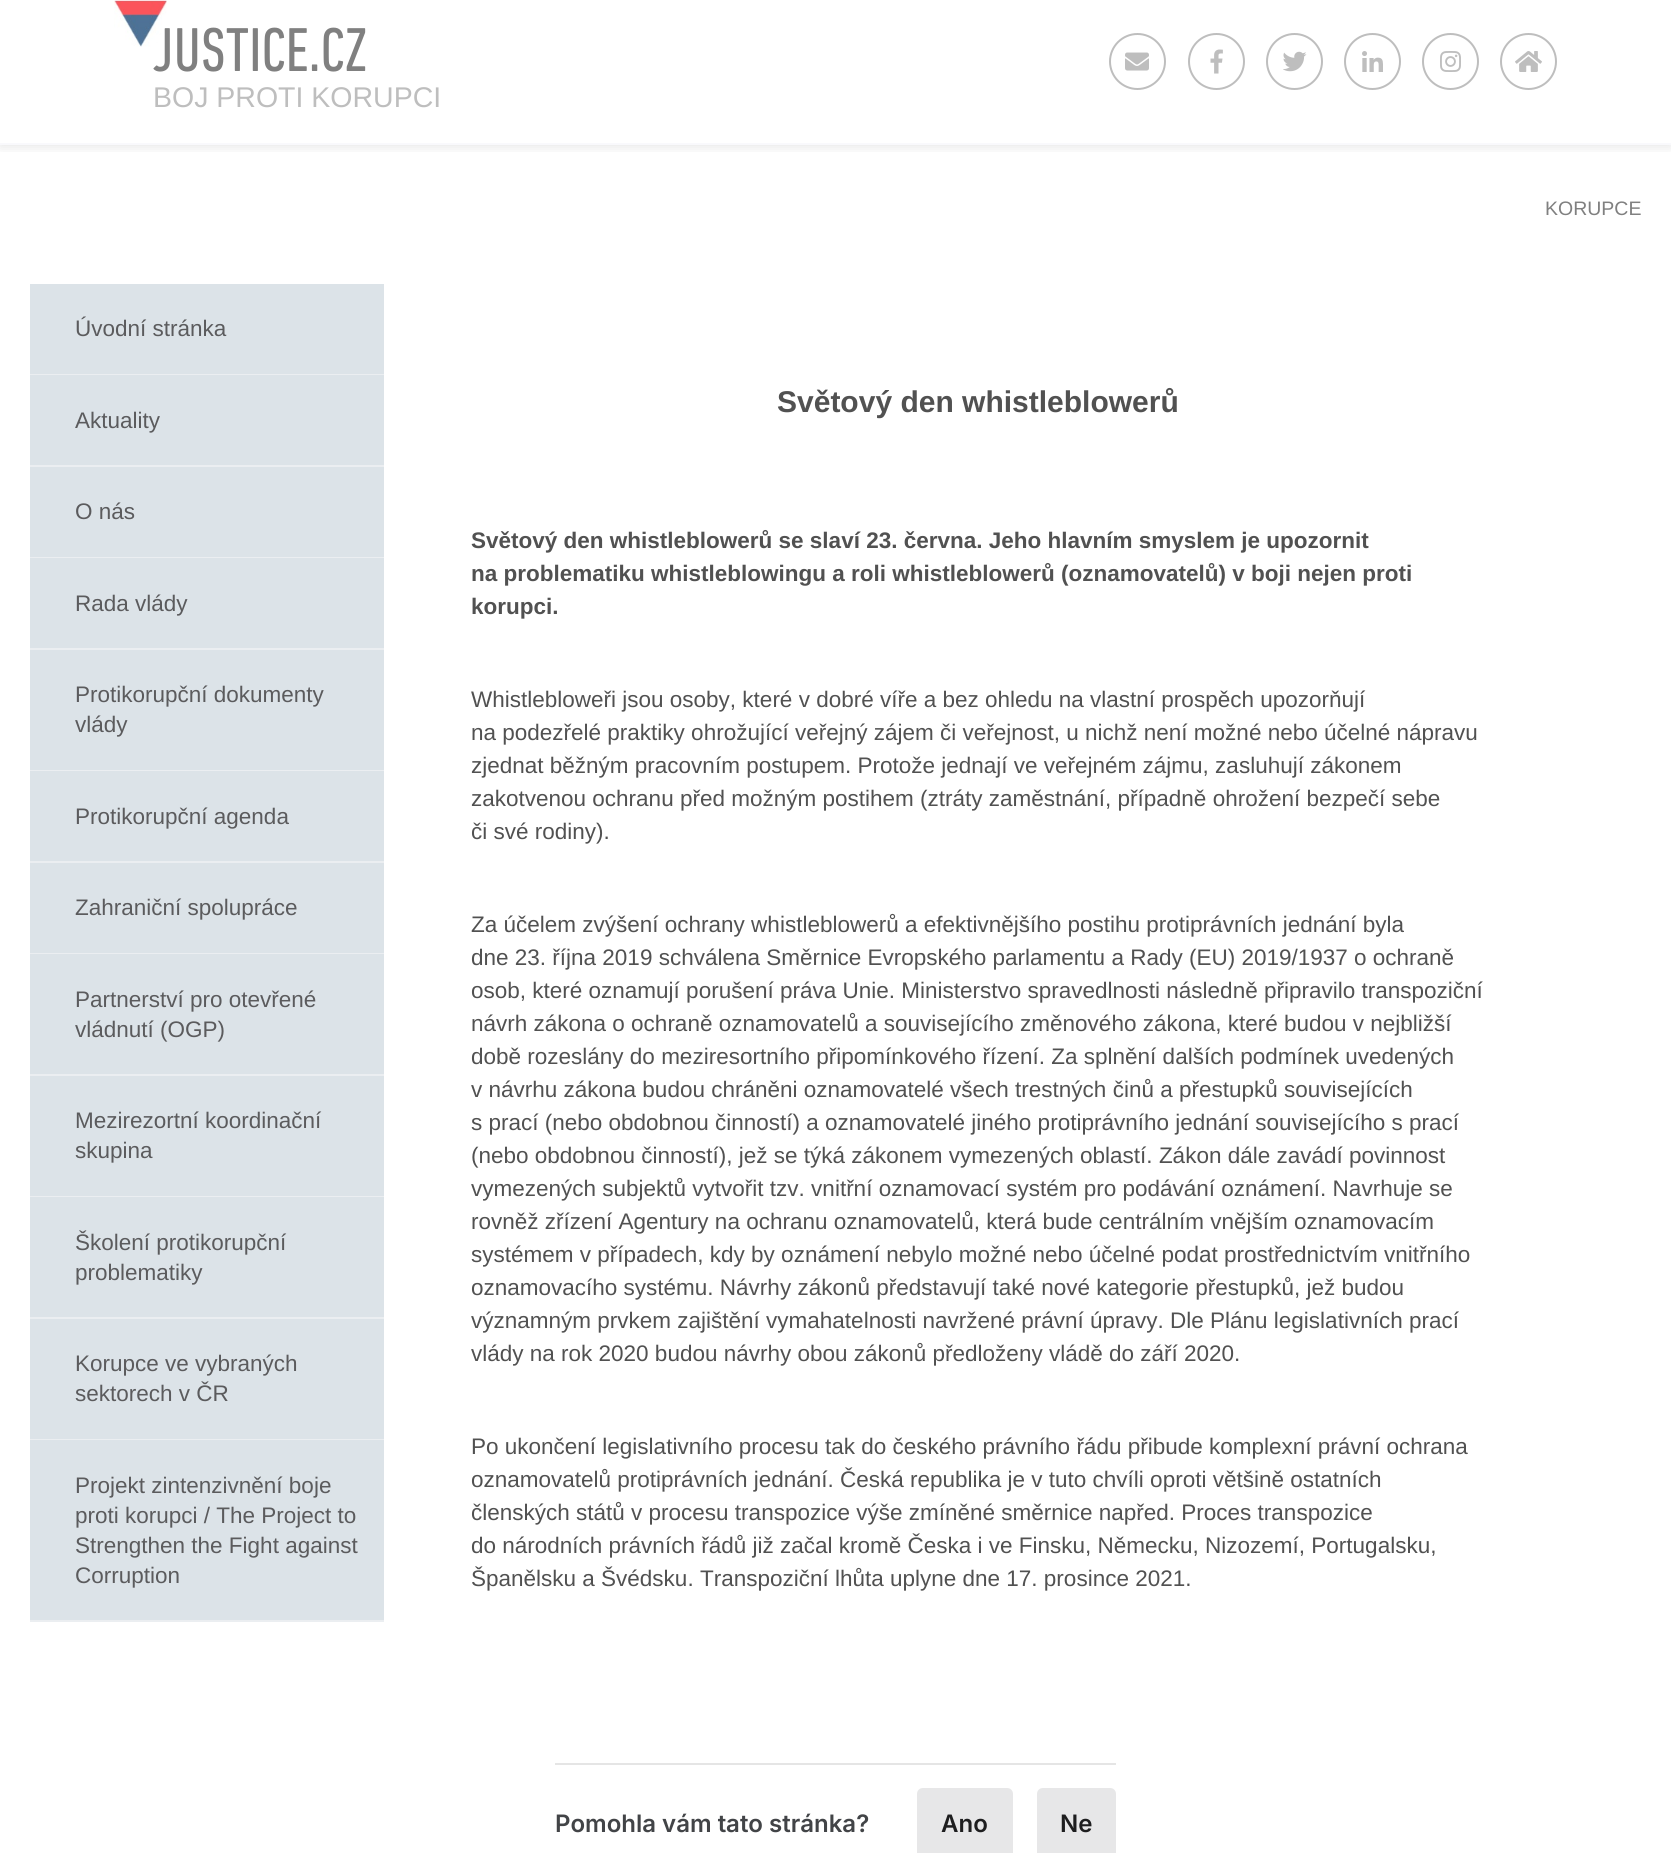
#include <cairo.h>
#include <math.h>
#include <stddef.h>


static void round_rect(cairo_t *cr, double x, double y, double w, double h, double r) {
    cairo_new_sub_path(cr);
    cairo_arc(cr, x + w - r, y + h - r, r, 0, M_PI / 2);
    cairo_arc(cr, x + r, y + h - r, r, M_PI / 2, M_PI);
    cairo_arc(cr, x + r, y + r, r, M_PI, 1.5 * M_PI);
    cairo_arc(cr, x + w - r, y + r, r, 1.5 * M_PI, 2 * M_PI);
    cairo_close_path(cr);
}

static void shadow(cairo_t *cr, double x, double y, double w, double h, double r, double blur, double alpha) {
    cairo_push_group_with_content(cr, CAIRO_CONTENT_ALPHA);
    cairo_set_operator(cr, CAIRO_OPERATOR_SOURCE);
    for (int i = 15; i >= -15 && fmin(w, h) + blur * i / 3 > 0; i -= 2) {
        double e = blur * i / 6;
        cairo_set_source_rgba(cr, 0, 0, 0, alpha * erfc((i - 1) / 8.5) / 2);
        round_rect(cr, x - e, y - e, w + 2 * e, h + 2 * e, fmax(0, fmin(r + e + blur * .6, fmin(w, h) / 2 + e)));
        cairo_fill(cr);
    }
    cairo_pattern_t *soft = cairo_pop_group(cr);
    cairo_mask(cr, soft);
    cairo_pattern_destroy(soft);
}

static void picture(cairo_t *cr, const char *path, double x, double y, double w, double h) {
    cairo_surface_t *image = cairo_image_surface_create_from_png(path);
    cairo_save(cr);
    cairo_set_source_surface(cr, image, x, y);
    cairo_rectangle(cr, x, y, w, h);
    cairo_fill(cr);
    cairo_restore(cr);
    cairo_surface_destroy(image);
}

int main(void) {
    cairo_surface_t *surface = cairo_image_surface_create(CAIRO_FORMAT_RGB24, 1671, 1853);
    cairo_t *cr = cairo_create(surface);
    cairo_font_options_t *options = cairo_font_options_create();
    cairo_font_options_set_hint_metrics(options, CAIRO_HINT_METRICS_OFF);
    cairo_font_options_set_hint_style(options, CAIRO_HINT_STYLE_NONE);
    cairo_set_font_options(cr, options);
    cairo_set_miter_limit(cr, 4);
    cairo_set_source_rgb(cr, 1, 1, 1);
    cairo_paint(cr);
    cairo_save(cr);
    cairo_rectangle(cr, 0, 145, 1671, 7);
    cairo_clip(cr);
    cairo_set_source_rgb(cr, 0, 0, 0);
    shadow(cr, 0, 3, 1671, 144, 0, 6, 0.1);
    cairo_restore(cr);
    cairo_set_source_rgb(cr, 0.973, 0.976, 0.988);
    cairo_rectangle(cr, 0, 143, 1671, 2);
    cairo_fill(cr);
    picture(cr, "img1.png", 114, 0, 53, 47);
    cairo_select_font_face(cr, "DIN Next", CAIRO_FONT_SLANT_NORMAL, CAIRO_FONT_WEIGHT_NORMAL);
    cairo_set_font_size(cr, 63);
    cairo_set_source_rgb(cr, 0.502, 0.502, 0.502);
    cairo_move_to(cr, 152, 71);
    cairo_show_text(cr, "JUSTICE.CZ");
    cairo_select_font_face(cr, "Liberation Sans", CAIRO_FONT_SLANT_NORMAL, CAIRO_FONT_WEIGHT_NORMAL);
    cairo_set_font_size(cr, 28.5);
    cairo_set_source_rgb(cr, 0.745, 0.745, 0.745);
    cairo_move_to(cr, 153, 107);
    cairo_show_text(cr, "BOJ PROTI KORUPCI");
    cairo_new_path(cr);
    cairo_arc(cr, 1137.5, 61.5, 27.5, 0, 2 * M_PI);
    cairo_stroke(cr);
    picture(cr, "img2.png", 1125, 52, 24, 19);
    cairo_arc(cr, 1216.5, 61.5, 27.5, 0, 2 * M_PI);
    cairo_stroke(cr);
    picture(cr, "img3.png", 1210, 49, 13, 25);
    cairo_arc(cr, 1294.5, 61.5, 27.5, 0, 2 * M_PI);
    cairo_stroke(cr);
    picture(cr, "img4.png", 1283, 51, 24, 21);
    cairo_arc(cr, 1372.5, 61.5, 27.5, 0, 2 * M_PI);
    cairo_stroke(cr);
    picture(cr, "img5.png", 1362, 51, 21, 21);
    cairo_arc(cr, 1450.5, 61.5, 27.5, 0, 2 * M_PI);
    cairo_stroke(cr);
    picture(cr, "img6.png", 1440, 51, 21, 21);
    cairo_arc(cr, 1528.5, 61.5, 27.5, 0, 2 * M_PI);
    cairo_stroke(cr);
    picture(cr, "img7.png", 1515, 51, 27, 21);
    cairo_set_font_size(cr, 19.5);
    cairo_set_source_rgb(cr, 0.502, 0.502, 0.502);
    cairo_move_to(cr, 1545, 215);
    cairo_show_text(cr, "KORUPCE");
    cairo_set_source_rgb(cr, 0.863, 0.89, 0.91);
    cairo_rectangle(cr, 30, 284, 354, 90);
    cairo_fill(cr);
    cairo_set_source_rgb(cr, 0.918, 0.933, 0.945);
    cairo_rectangle(cr, 30, 374, 354, 1);
    cairo_fill(cr);
    cairo_set_font_size(cr, 22.5);
    cairo_set_source_rgb(cr, 0.357, 0.357, 0.365);
    cairo_move_to(cr, 75, 336);
    cairo_show_text(cr, "Úvodní stránka");
    cairo_set_source_rgb(cr, 0.863, 0.89, 0.91);
    cairo_rectangle(cr, 30, 375, 354, 90);
    cairo_fill(cr);
    cairo_set_source_rgb(cr, 0.918, 0.933, 0.945);
    cairo_rectangle(cr, 30, 465, 354, 2);
    cairo_fill(cr);
    cairo_set_source_rgb(cr, 0.357, 0.357, 0.365);
    cairo_move_to(cr, 75, 428);
    cairo_show_text(cr, "Aktuality");
    cairo_set_source_rgb(cr, 0.863, 0.89, 0.91);
    cairo_rectangle(cr, 30, 467, 354, 90);
    cairo_fill(cr);
    cairo_set_source_rgb(cr, 0.918, 0.933, 0.945);
    cairo_rectangle(cr, 30, 557, 354, 1);
    cairo_fill(cr);
    cairo_set_source_rgb(cr, 0.357, 0.357, 0.365);
    cairo_move_to(cr, 75, 519);
    cairo_show_text(cr, "O nás");
    cairo_set_source_rgb(cr, 0.863, 0.89, 0.91);
    cairo_rectangle(cr, 30, 558, 354, 90);
    cairo_fill(cr);
    cairo_set_source_rgb(cr, 0.918, 0.933, 0.945);
    cairo_rectangle(cr, 30, 648, 354, 2);
    cairo_fill(cr);
    cairo_set_source_rgb(cr, 0.357, 0.357, 0.365);
    cairo_move_to(cr, 75, 611);
    cairo_show_text(cr, "Rada vlády");
    cairo_set_source_rgb(cr, 0.863, 0.89, 0.91);
    cairo_rectangle(cr, 30, 650, 354, 120);
    cairo_fill(cr);
    cairo_set_source_rgb(cr, 0.918, 0.933, 0.945);
    cairo_rectangle(cr, 30, 770, 354, 1);
    cairo_fill(cr);
    cairo_set_source_rgb(cr, 0.357, 0.357, 0.365);
    cairo_move_to(cr, 75, 702);
    cairo_show_text(cr, "Protikorupční dokumenty");
    cairo_move_to(cr, 75, 732);
    cairo_show_text(cr, "vlády");
    cairo_set_source_rgb(cr, 0.863, 0.89, 0.91);
    cairo_rectangle(cr, 30, 771, 354, 90);
    cairo_fill(cr);
    cairo_set_source_rgb(cr, 0.918, 0.933, 0.945);
    cairo_rectangle(cr, 30, 861, 354, 2);
    cairo_fill(cr);
    cairo_set_source_rgb(cr, 0.357, 0.357, 0.365);
    cairo_move_to(cr, 75, 824);
    cairo_show_text(cr, "Protikorupční agenda");
    cairo_set_source_rgb(cr, 0.863, 0.89, 0.91);
    cairo_rectangle(cr, 30, 863, 354, 90);
    cairo_fill(cr);
    cairo_set_source_rgb(cr, 0.918, 0.933, 0.945);
    cairo_rectangle(cr, 30, 953, 354, 1);
    cairo_fill(cr);
    cairo_set_source_rgb(cr, 0.357, 0.357, 0.365);
    cairo_move_to(cr, 75, 915);
    cairo_show_text(cr, "Zahraniční spolupráce");
    cairo_set_source_rgb(cr, 0.863, 0.89, 0.91);
    cairo_rectangle(cr, 30, 954, 354, 120);
    cairo_fill(cr);
    cairo_set_source_rgb(cr, 0.918, 0.933, 0.945);
    cairo_rectangle(cr, 30, 1074, 354, 2);
    cairo_fill(cr);
    cairo_set_source_rgb(cr, 0.357, 0.357, 0.365);
    cairo_move_to(cr, 75, 1007);
    cairo_show_text(cr, "Partnerství pro otevřené");
    cairo_move_to(cr, 75, 1037);
    cairo_show_text(cr, "vládnutí (OGP)");
    cairo_set_source_rgb(cr, 0.863, 0.89, 0.91);
    cairo_rectangle(cr, 30, 1076, 354, 120);
    cairo_fill(cr);
    cairo_set_source_rgb(cr, 0.918, 0.933, 0.945);
    cairo_rectangle(cr, 30, 1196, 354, 1);
    cairo_fill(cr);
    cairo_set_source_rgb(cr, 0.357, 0.357, 0.365);
    cairo_move_to(cr, 75, 1128);
    cairo_show_text(cr, "Mezirezortní koordinační");
    cairo_move_to(cr, 75, 1158);
    cairo_show_text(cr, "skupina");
    cairo_set_source_rgb(cr, 0.863, 0.89, 0.91);
    cairo_rectangle(cr, 30, 1197, 354, 120);
    cairo_fill(cr);
    cairo_set_source_rgb(cr, 0.918, 0.933, 0.945);
    cairo_rectangle(cr, 30, 1317, 354, 2);
    cairo_fill(cr);
    cairo_set_source_rgb(cr, 0.357, 0.357, 0.365);
    cairo_move_to(cr, 75, 1250);
    cairo_show_text(cr, "Školení protikorupční");
    cairo_move_to(cr, 75, 1280);
    cairo_show_text(cr, "problematiky");
    cairo_set_source_rgb(cr, 0.863, 0.89, 0.91);
    cairo_rectangle(cr, 30, 1319, 354, 120);
    cairo_fill(cr);
    cairo_set_source_rgb(cr, 0.918, 0.933, 0.945);
    cairo_rectangle(cr, 30, 1439, 354, 1);
    cairo_fill(cr);
    cairo_set_source_rgb(cr, 0.357, 0.357, 0.365);
    cairo_move_to(cr, 75, 1371);
    cairo_show_text(cr, "Korupce ve vybraných");
    cairo_move_to(cr, 75, 1401);
    cairo_show_text(cr, "sektorech v ČR");
    cairo_set_source_rgb(cr, 0.863, 0.89, 0.91);
    cairo_rectangle(cr, 30, 1440, 354, 180);
    cairo_fill(cr);
    cairo_set_source_rgb(cr, 0.918, 0.933, 0.945);
    cairo_rectangle(cr, 30, 1620, 354, 2);
    cairo_fill(cr);
    cairo_set_source_rgb(cr, 0.357, 0.357, 0.365);
    cairo_move_to(cr, 75, 1493);
    cairo_show_text(cr, "Projekt zintenzivnění boje");
    cairo_move_to(cr, 75, 1523);
    cairo_show_text(cr, "proti korupci / The Project to");
    cairo_move_to(cr, 75, 1553);
    cairo_show_text(cr, "Strengthen the Fight against");
    cairo_move_to(cr, 75, 1583);
    cairo_show_text(cr, "Corruption");
    cairo_select_font_face(cr, "Liberation Sans", CAIRO_FONT_SLANT_NORMAL, CAIRO_FONT_WEIGHT_BOLD);
    cairo_set_font_size(cr, 30);
    cairo_set_source_rgb(cr, 0.318, 0.318, 0.318);
    cairo_move_to(cr, 777, 412);
    cairo_show_text(cr, "Světový den whistleblowerů");
    cairo_set_font_size(cr, 22.5);
    cairo_move_to(cr, 471, 548);
    cairo_show_text(cr, "Světový den whistleblowerů se slaví 23. června. Jeho hlavním smyslem je upozornit");
    cairo_move_to(cr, 471, 581);
    cairo_show_text(cr, "na problematiku whistleblowingu a roli whistleblowerů (oznamovatelů) v boji nejen proti");
    cairo_move_to(cr, 471, 614);
    cairo_show_text(cr, "korupci.");
    cairo_select_font_face(cr, "Liberation Sans", CAIRO_FONT_SLANT_NORMAL, CAIRO_FONT_WEIGHT_NORMAL);
    cairo_move_to(cr, 471, 707);
    cairo_show_text(cr, "Whistlebloweři jsou osoby, které v dobré víře a bez ohledu na vlastní prospěch upozorňují");
    cairo_move_to(cr, 471, 740);
    cairo_show_text(cr, "na podezřelé praktiky ohrožující veřejný zájem či veřejnost, u nichž není možné nebo účelné nápravu");
    cairo_move_to(cr, 471, 773);
    cairo_show_text(cr, "zjednat běžným pracovním postupem. Protože jednají ve veřejném zájmu, zasluhují zákonem");
    cairo_move_to(cr, 471, 806);
    cairo_show_text(cr, "zakotvenou ochranu před možným postihem (ztráty zaměstnání, případně ohrožení bezpečí sebe");
    cairo_move_to(cr, 471, 839);
    cairo_show_text(cr, "či své rodiny).");
    cairo_move_to(cr, 471, 932);
    cairo_show_text(cr, "Za účelem zvýšení ochrany whistleblowerů a efektivnějšího postihu protiprávních jednání byla");
    cairo_move_to(cr, 471, 965);
    cairo_show_text(cr, "dne 23. října 2019 schválena Směrnice Evropského parlamentu a Rady (EU) 2019/1937 o ochraně");
    cairo_move_to(cr, 471, 998);
    cairo_show_text(cr, "osob, které oznamují porušení práva Unie. Ministerstvo spravedlnosti následně připravilo transpoziční");
    cairo_move_to(cr, 471, 1031);
    cairo_show_text(cr, "návrh zákona o ochraně oznamovatelů a souvisejícího změnového zákona, které budou v nejbližší");
    cairo_move_to(cr, 471, 1064);
    cairo_show_text(cr, "době rozeslány do meziresortního připomínkového řízení. Za splnění dalších podmínek uvedených");
    cairo_move_to(cr, 471, 1097);
    cairo_show_text(cr, "v návrhu zákona budou chráněni oznamovatelé všech trestných činů a přestupků souvisejících");
    cairo_move_to(cr, 471, 1130);
    cairo_show_text(cr, "s prací (nebo obdobnou činností) a oznamovatelé jiného protiprávního jednání souvisejícího s prací");
    cairo_move_to(cr, 471, 1163);
    cairo_show_text(cr, "(nebo obdobnou činností), jež se týká zákonem vymezených oblastí. Zákon dále zavádí povinnost");
    cairo_move_to(cr, 471, 1196);
    cairo_show_text(cr, "vymezených subjektů vytvořit tzv. vnitřní oznamovací systém pro podávání oznámení. Navrhuje se");
    cairo_move_to(cr, 471, 1229);
    cairo_show_text(cr, "rovněž zřízení Agentury na ochranu oznamovatelů, která bude centrálním vnějším oznamovacím");
    cairo_move_to(cr, 471, 1262);
    cairo_show_text(cr, "systémem v případech, kdy by oznámení nebylo možné nebo účelné podat prostřednictvím vnitřního");
    cairo_move_to(cr, 471, 1295);
    cairo_show_text(cr, "oznamovacího systému. Návrhy zákonů představují také nové kategorie přestupků, jež budou");
    cairo_move_to(cr, 471, 1328);
    cairo_show_text(cr, "významným prvkem zajištění vymahatelnosti navržené právní úpravy. Dle Plánu legislativních prací");
    cairo_move_to(cr, 471, 1361);
    cairo_show_text(cr, "vlády na rok 2020 budou návrhy obou zákonů předloženy vládě do září 2020.");
    cairo_move_to(cr, 471, 1454);
    cairo_show_text(cr, "Po ukončení legislativního procesu tak do českého právního řádu přibude komplexní právní ochrana");
    cairo_move_to(cr, 471, 1487);
    cairo_show_text(cr, "oznamovatelů protiprávních jednání. Česká republika je v tuto chvíli oproti většině ostatních");
    cairo_move_to(cr, 471, 1520);
    cairo_show_text(cr, "členských států v procesu transpozice výše zmíněné směrnice napřed. Proces transpozice");
    cairo_move_to(cr, 471, 1553);
    cairo_show_text(cr, "do národních právních řádů již začal kromě Česka i ve Finsku, Německu, Nizozemí, Portugalsku,");
    cairo_move_to(cr, 471, 1586);
    cairo_show_text(cr, "Španělsku a Švédsku. Transpoziční lhůta uplyne dne 17. prosince 2021.");
    cairo_set_source_rgb(cr, 0.898, 0.898, 0.898);
    cairo_rectangle(cr, 555, 1763, 561, 2);
    cairo_fill(cr);
    cairo_select_font_face(cr, "Inter SemiBold", CAIRO_FONT_SLANT_NORMAL, CAIRO_FONT_WEIGHT_NORMAL);
    cairo_set_font_size(cr, 24);
    cairo_set_source_rgb(cr, 0.259, 0.267, 0.278);
    cairo_move_to(cr, 555, 1832);
    cairo_show_text(cr, "Pomohla vám tato stránka?");
    cairo_set_source_rgb(cr, 0.906, 0.906, 0.91);
    cairo_new_path(cr);
    cairo_move_to(cr, 923, 1788);
    cairo_line_to(cr, 1007, 1788);
    cairo_curve_to(cr, 1010.5, 1788, 1013, 1790.5, 1013, 1794);
    cairo_line_to(cr, 1013, 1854);
    cairo_line_to(cr, 917, 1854);
    cairo_line_to(cr, 917, 1794);
    cairo_curve_to(cr, 917, 1790.5, 919.5, 1788, 923, 1788);
    cairo_close_path(cr);
    cairo_fill(cr);
    cairo_set_source_rgb(cr, 0.118, 0.118, 0.122);
    cairo_move_to(cr, 941, 1832);
    cairo_show_text(cr, "Ano");
    cairo_set_source_rgb(cr, 0.906, 0.906, 0.91);
    cairo_new_path(cr);
    cairo_move_to(cr, 1043, 1788);
    cairo_line_to(cr, 1110, 1788);
    cairo_curve_to(cr, 1113.5, 1788, 1116, 1790.5, 1116, 1794);
    cairo_line_to(cr, 1116, 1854);
    cairo_line_to(cr, 1037, 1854);
    cairo_line_to(cr, 1037, 1794);
    cairo_curve_to(cr, 1037, 1790.5, 1039.5, 1788, 1043, 1788);
    cairo_close_path(cr);
    cairo_fill(cr);
    cairo_set_source_rgb(cr, 0.118, 0.118, 0.122);
    cairo_move_to(cr, 1060, 1832);
    cairo_show_text(cr, "Ne");
    cairo_surface_write_to_png(surface, "page.png");
    cairo_font_options_destroy(options);
    cairo_destroy(cr);
    cairo_surface_destroy(surface);
    return 0;
}
